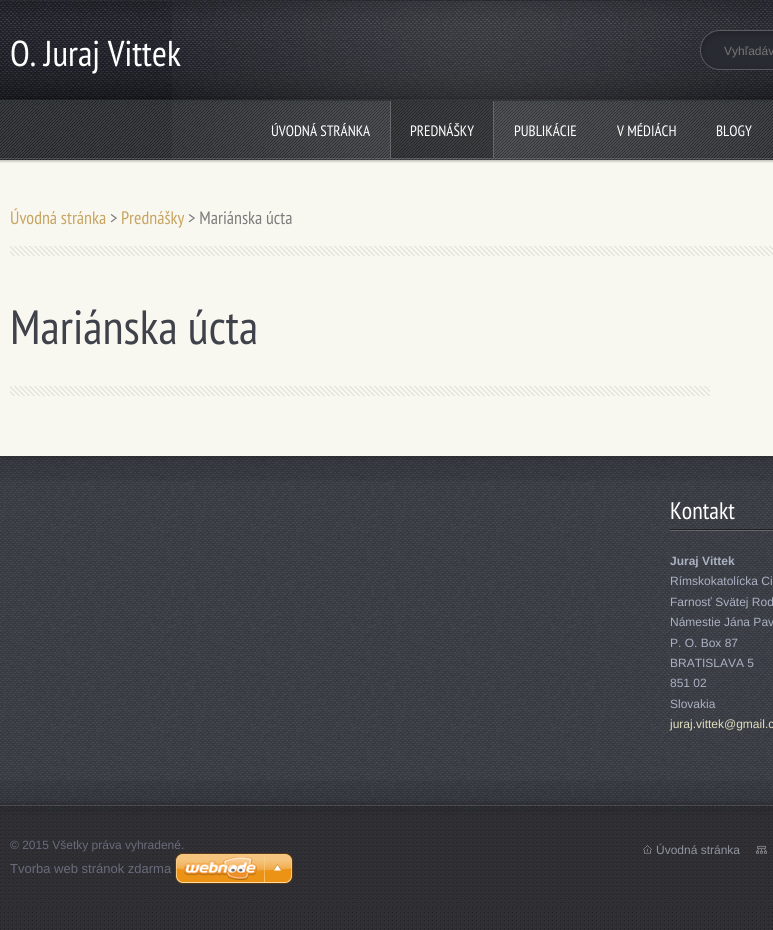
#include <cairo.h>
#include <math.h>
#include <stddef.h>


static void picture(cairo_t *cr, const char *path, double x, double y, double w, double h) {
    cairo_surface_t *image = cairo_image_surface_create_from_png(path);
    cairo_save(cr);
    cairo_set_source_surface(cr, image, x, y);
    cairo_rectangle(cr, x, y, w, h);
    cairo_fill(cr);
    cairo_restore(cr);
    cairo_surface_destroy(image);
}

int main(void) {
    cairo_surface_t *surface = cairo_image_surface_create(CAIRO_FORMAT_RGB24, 773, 930);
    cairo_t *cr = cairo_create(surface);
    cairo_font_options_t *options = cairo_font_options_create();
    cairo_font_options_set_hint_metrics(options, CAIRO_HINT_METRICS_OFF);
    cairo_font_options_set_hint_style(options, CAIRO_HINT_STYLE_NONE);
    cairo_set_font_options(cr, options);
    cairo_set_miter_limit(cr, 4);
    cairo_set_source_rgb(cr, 1, 1, 1);
    cairo_paint(cr);
    picture(cr, "img1.png", 0, 100, 773, 830);
    picture(cr, "img2.png", 0, 0, 773, 100);
    picture(cr, "img3.png", 172, 1, 601, 99);
    cairo_select_font_face(cr, "PT Sans Narrow", CAIRO_FONT_SLANT_NORMAL, CAIRO_FONT_WEIGHT_NORMAL);
    cairo_set_font_size(cr, 36);
    cairo_set_source_rgb(cr, 1, 1, 1);
    cairo_move_to(cr, 10, 66);
    cairo_show_text(cr, "O. Juraj Vittek");
    picture(cr, "img4.png", 700, 30, 73, 40);
    cairo_select_font_face(cr, "Liberation Sans", CAIRO_FONT_SLANT_NORMAL, CAIRO_FONT_WEIGHT_NORMAL);
    cairo_set_font_size(cr, 12);
    cairo_set_source_rgb(cr, 0.459, 0.459, 0.459);
    cairo_move_to(cr, 724, 55);
    cairo_show_text(cr, "Vyhľadáv");
    picture(cr, "img5.png", 0, 100, 773, 60);
    picture(cr, "img6.png", 172, 101, 601, 59);
    cairo_select_font_face(cr, "PT Sans Narrow", CAIRO_FONT_SLANT_NORMAL, CAIRO_FONT_WEIGHT_NORMAL);
    cairo_set_font_size(cr, 15);
    cairo_set_source_rgb(cr, 1, 1, 1);
    cairo_move_to(cr, 271, 136);
    cairo_show_text(cr, "ÚVODNÁ STRÁNKA");
    cairo_set_source_rgba(cr, 0, 0, 0, 0.25);
    cairo_rectangle(cr, 391, 101, 102, 57);
    cairo_fill(cr);
    cairo_set_source_rgb(cr, 0.392, 0.404, 0.424);
    cairo_rectangle(cr, 493, 101, 1, 57);
    cairo_fill(cr);
    cairo_rectangle(cr, 390, 101, 1, 57);
    cairo_fill(cr);
    cairo_set_source_rgb(cr, 1, 1, 1);
    cairo_move_to(cr, 410, 136);
    cairo_show_text(cr, "PREDNÁŠKY");
    cairo_move_to(cr, 514, 136);
    cairo_show_text(cr, "PUBLIKÁCIE");
    cairo_move_to(cr, 617, 136);
    cairo_show_text(cr, "V MÉDIÁCH");
    cairo_move_to(cr, 716, 136);
    cairo_show_text(cr, "BLOGY");
    cairo_set_source_rgb(cr, 0.973, 0.969, 0.941);
    cairo_rectangle(cr, 0, 160, 773, 296);
    cairo_fill(cr);
    picture(cr, "img7.png", 0, 160, 773, 3);
    picture(cr, "img8.png", 10, 246, 763, 10);
    cairo_set_font_size(cr, 18);
    cairo_set_source_rgb(cr, 0.78, 0.643, 0.38);
    cairo_move_to(cr, 10, 224);
    cairo_show_text(cr, "Úvodná stránka");
    cairo_set_source_rgb(cr, 0.486, 0.486, 0.486);
    cairo_move_to(cr, 110, 224);
    cairo_show_text(cr, ">");
    cairo_set_source_rgb(cr, 0.78, 0.643, 0.38);
    cairo_move_to(cr, 121, 224);
    cairo_show_text(cr, "Prednášky");
    cairo_set_source_rgb(cr, 0.486, 0.486, 0.486);
    cairo_move_to(cr, 188, 224);
    cairo_show_text(cr, "> Mariánska úcta");
    picture(cr, "img9.png", 10, 386, 700, 10);
    cairo_set_font_size(cr, 48);
    cairo_set_source_rgb(cr, 0.247, 0.259, 0.29);
    cairo_move_to(cr, 10, 344);
    cairo_show_text(cr, "Mariánska úcta");
    picture(cr, "img10.png", 0, 456, 773, 349);
    picture(cr, "img11.png", 0, 456, 773, 25);
    picture(cr, "img12.png", 670, 529, 103, 2);
    cairo_set_font_size(cr, 24);
    cairo_set_source_rgb(cr, 1, 1, 1);
    cairo_move_to(cr, 670, 519);
    cairo_show_text(cr, "Kontakt");
    cairo_select_font_face(cr, "Liberation Sans", CAIRO_FONT_SLANT_NORMAL, CAIRO_FONT_WEIGHT_BOLD);
    cairo_set_font_size(cr, 12);
    cairo_set_source_rgb(cr, 0.671, 0.694, 0.761);
    cairo_move_to(cr, 670, 565);
    cairo_show_text(cr, "Juraj Vittek");
    cairo_select_font_face(cr, "Liberation Sans", CAIRO_FONT_SLANT_NORMAL, CAIRO_FONT_WEIGHT_NORMAL);
    cairo_move_to(cr, 670, 585);
    cairo_show_text(cr, "Rímskokatolícka Ci");
    cairo_move_to(cr, 670, 606);
    cairo_show_text(cr, "Farnosť Svätej Rod");
    cairo_move_to(cr, 670, 626);
    cairo_show_text(cr, "Námestie Jána Pav");
    cairo_move_to(cr, 670, 647);
    cairo_show_text(cr, "P. O. Box 87");
    cairo_move_to(cr, 670, 667);
    cairo_show_text(cr, "BRATISLAVA 5");
    cairo_move_to(cr, 670, 687);
    cairo_show_text(cr, "851 02");
    cairo_move_to(cr, 670, 708);
    cairo_show_text(cr, "Slovakia");
    cairo_set_source_rgb(cr, 0.878, 0.875, 0.753);
    cairo_move_to(cr, 670, 728);
    cairo_show_text(cr, "juraj.vittek@gmail.c");
    picture(cr, "img13.png", 0, 780, 773, 25);
    picture(cr, "img14.png", 0, 805, 773, 103);
    cairo_set_source_rgb(cr, 0.408, 0.42, 0.478);
    cairo_move_to(cr, 10, 849);
    cairo_show_text(cr, "© 2015 Všetky práva vyhradené.");
    picture(cr, "img15.png", 643, 845, 9, 9);
    cairo_set_source_rgb(cr, 0.561, 0.58, 0.62);
    cairo_move_to(cr, 656, 854);
    cairo_show_text(cr, "Úvodná stránka");
    picture(cr, "img16.png", 756, 845, 11, 9);
    cairo_set_font_size(cr, 13);
    cairo_set_source_rgb(cr, 0.408, 0.42, 0.478);
    cairo_move_to(cr, 10, 873);
    cairo_show_text(cr, "Tvorba web stránok zdarma");
    picture(cr, "img17.png", 175, 853, 118, 31);
    cairo_surface_write_to_png(surface, "page.png");
    cairo_font_options_destroy(options);
    cairo_destroy(cr);
    cairo_surface_destroy(surface);
    return 0;
}
